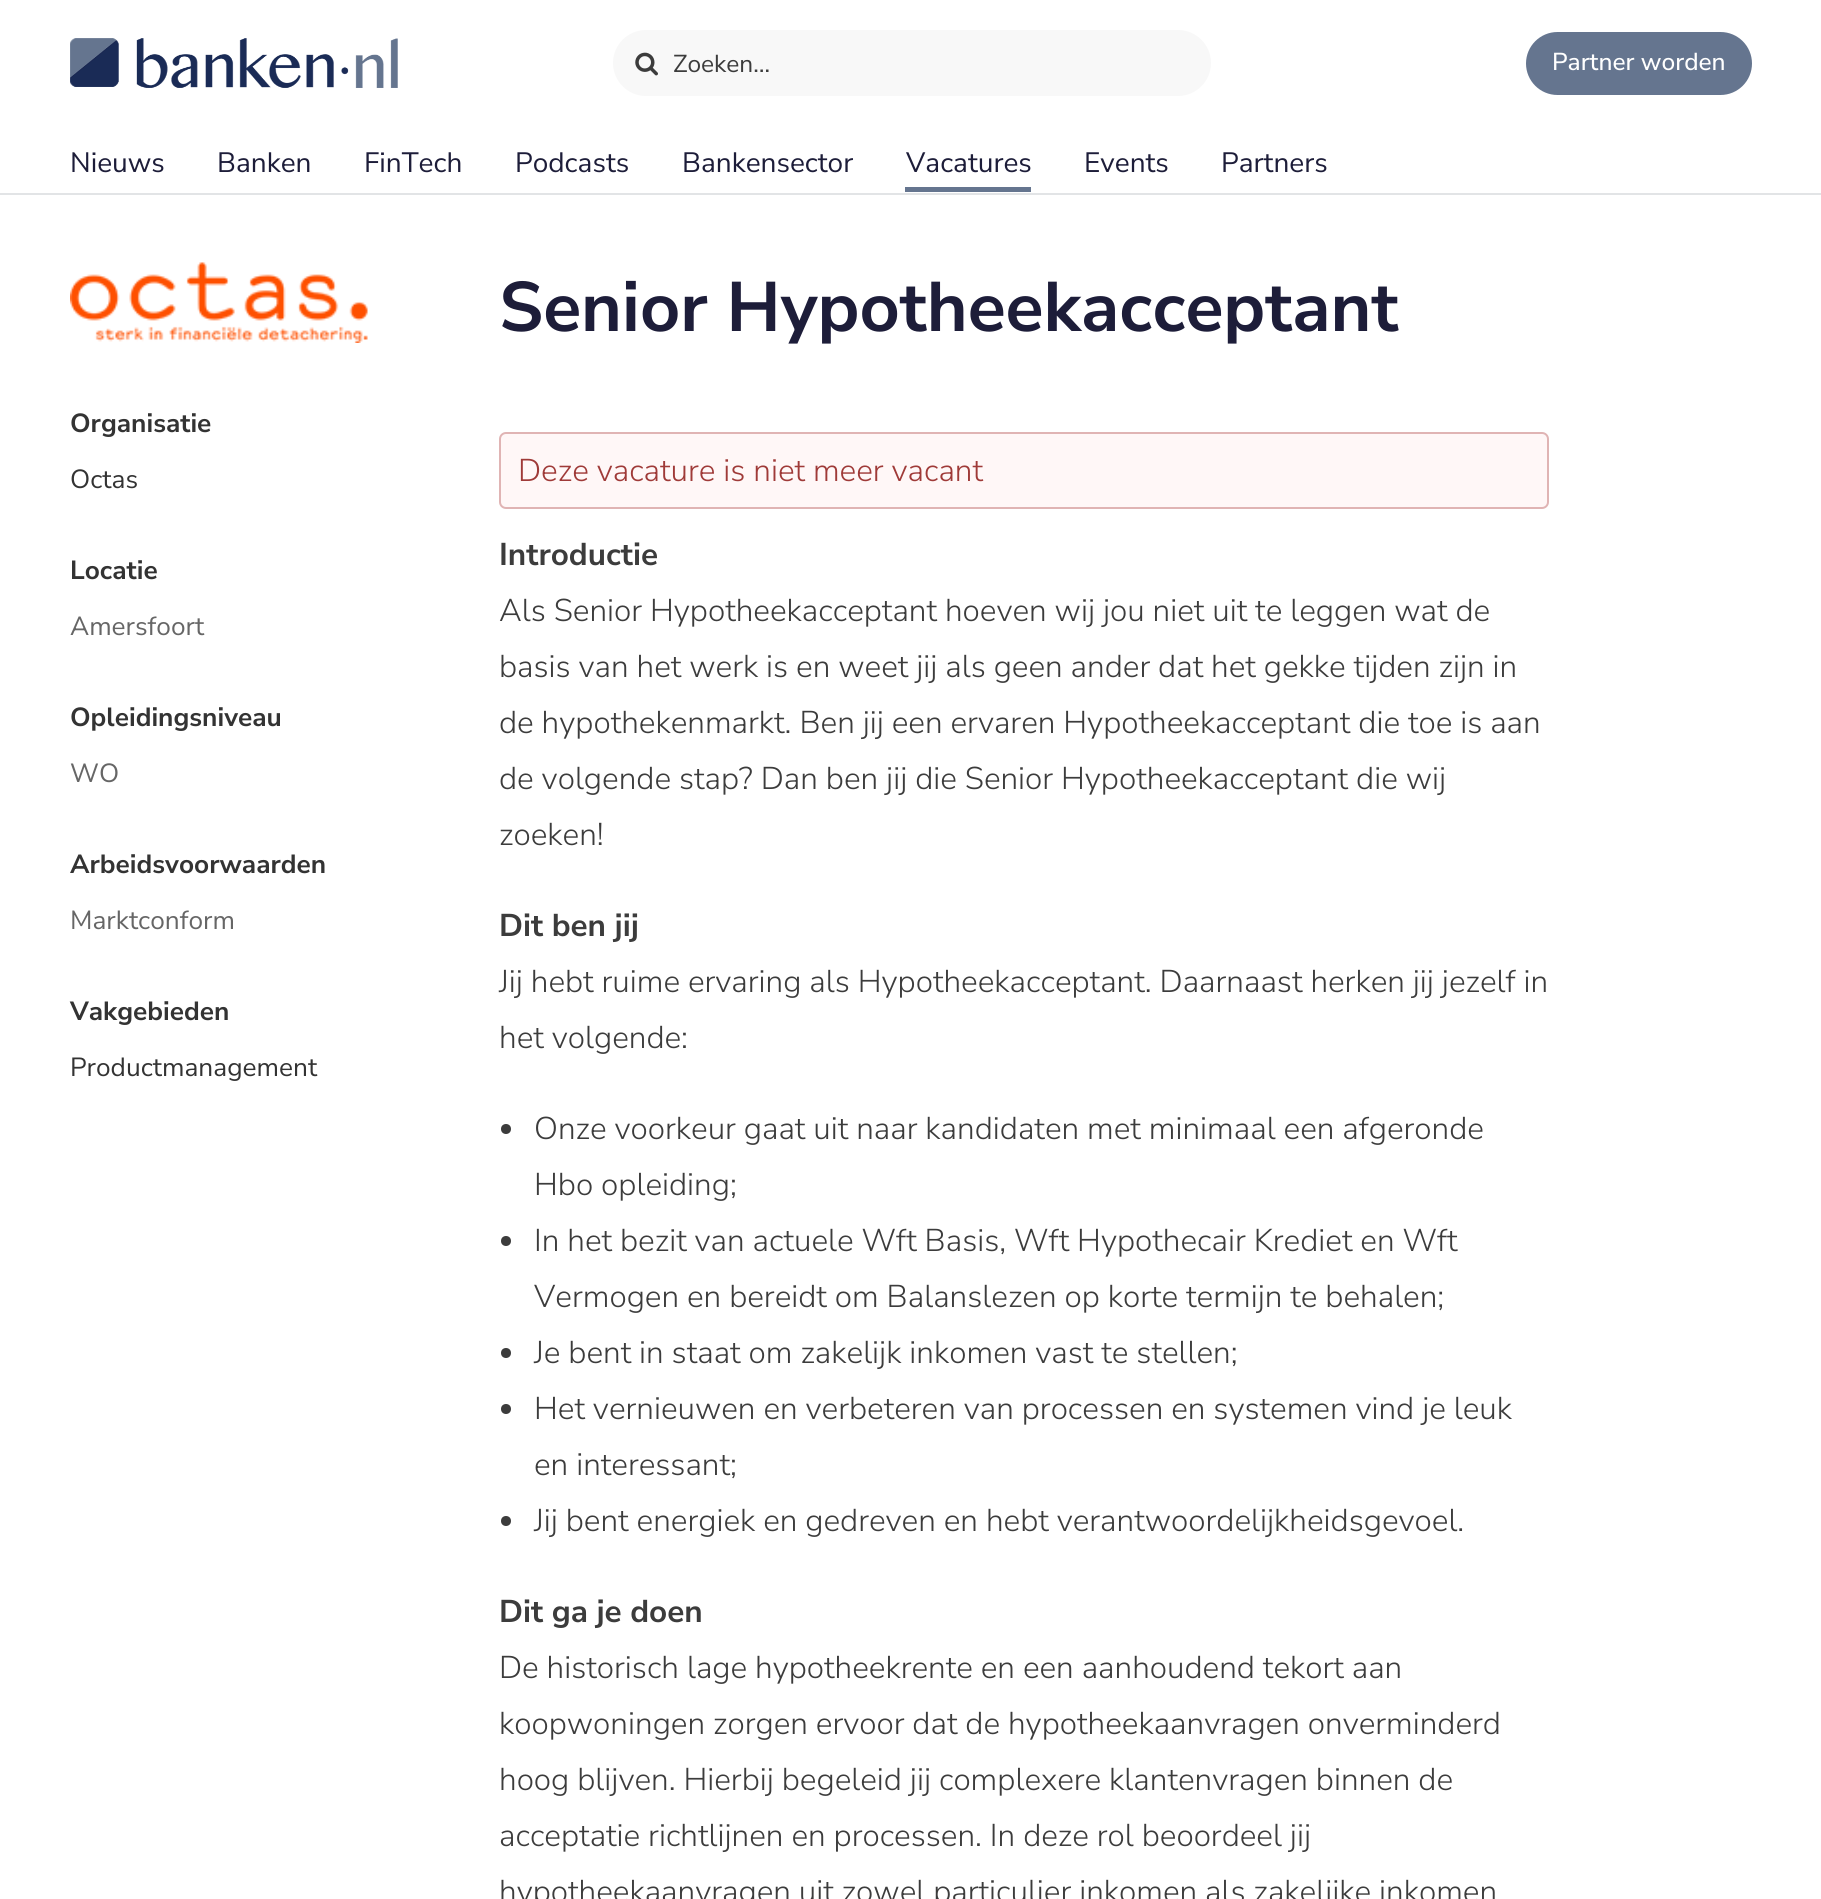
#include <cairo.h>
#include <math.h>
#include <stddef.h>


static void round_rect(cairo_t *cr, double x, double y, double w, double h, double r) {
    cairo_new_sub_path(cr);
    cairo_arc(cr, x + w - r, y + h - r, r, 0, M_PI / 2);
    cairo_arc(cr, x + r, y + h - r, r, M_PI / 2, M_PI);
    cairo_arc(cr, x + r, y + r, r, M_PI, 1.5 * M_PI);
    cairo_arc(cr, x + w - r, y + r, r, 1.5 * M_PI, 2 * M_PI);
    cairo_close_path(cr);
}

static void picture(cairo_t *cr, const char *path, double x, double y, double w, double h) {
    cairo_surface_t *image = cairo_image_surface_create_from_png(path);
    cairo_save(cr);
    cairo_set_source_surface(cr, image, x, y);
    cairo_rectangle(cr, x, y, w, h);
    cairo_fill(cr);
    cairo_restore(cr);
    cairo_surface_destroy(image);
}

int main(void) {
    cairo_surface_t *surface = cairo_image_surface_create(CAIRO_FORMAT_RGB24, 1821, 1899);
    cairo_t *cr = cairo_create(surface);
    cairo_font_options_t *options = cairo_font_options_create();
    cairo_font_options_set_hint_metrics(options, CAIRO_HINT_METRICS_OFF);
    cairo_font_options_set_hint_style(options, CAIRO_HINT_STYLE_NONE);
    cairo_set_font_options(cr, options);
    cairo_set_miter_limit(cr, 4);
    cairo_set_source_rgb(cr, 1, 1, 1);
    cairo_paint(cr);
    picture(cr, "img1.png", 70, 38, 328, 50);
    cairo_set_source_rgb(cr, 0.969, 0.969, 0.969);
    round_rect(cr, 613, 30, 598, 66, 33);
    cairo_fill(cr);
    picture(cr, "img2.png", 635, 52, 23, 24);
    cairo_select_font_face(cr, "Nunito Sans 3 ExtraLight", CAIRO_FONT_SLANT_NORMAL, CAIRO_FONT_WEIGHT_NORMAL);
    cairo_set_font_size(cr, 24.5);
    cairo_set_source_rgb(cr, 0.235, 0.235, 0.235);
    cairo_move_to(cr, 673, 72);
    cairo_show_text(cr, "Zoeken…");
    cairo_set_source_rgb(cr, 0.396, 0.459, 0.561);
    round_rect(cr, 1526, 32, 226, 63, 31.5);
    cairo_fill(cr);
    cairo_select_font_face(cr, "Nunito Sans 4 ExtraLight", CAIRO_FONT_SLANT_NORMAL, CAIRO_FONT_WEIGHT_NORMAL);
    cairo_set_source_rgb(cr, 1, 1, 1);
    cairo_move_to(cr, 1552, 70);
    cairo_show_text(cr, "Partner worden");
    cairo_select_font_face(cr, "Nunito Sans 3 ExtraLight", CAIRO_FONT_SLANT_NORMAL, CAIRO_FONT_WEIGHT_NORMAL);
    cairo_set_font_size(cr, 28);
    cairo_set_source_rgb(cr, 0.114, 0.114, 0.224);
    cairo_move_to(cr, 70, 172);
    cairo_show_text(cr, "Nieuws");
    cairo_move_to(cr, 217, 172);
    cairo_show_text(cr, "Banken");
    cairo_move_to(cr, 364, 172);
    cairo_show_text(cr, "FinTech");
    cairo_move_to(cr, 515, 172);
    cairo_show_text(cr, "Podcasts");
    cairo_move_to(cr, 682, 172);
    cairo_show_text(cr, "Bankensector");
    cairo_set_source_rgb(cr, 0.396, 0.459, 0.561);
    cairo_rectangle(cr, 905, 187, 126, 5);
    cairo_fill(cr);
    cairo_set_source_rgb(cr, 0.114, 0.114, 0.224);
    cairo_move_to(cr, 906, 172);
    cairo_show_text(cr, "Vacatures");
    cairo_move_to(cr, 1084, 172);
    cairo_show_text(cr, "Events");
    cairo_move_to(cr, 1221, 172);
    cairo_show_text(cr, "Partners");
    cairo_set_source_rgb(cr, 0.886, 0.894, 0.902);
    cairo_rectangle(cr, 0, 193, 1821, 2);
    cairo_fill(cr);
    cairo_select_font_face(cr, "Nunito Sans ExtraLight", CAIRO_FONT_SLANT_NORMAL, CAIRO_FONT_WEIGHT_NORMAL);
    cairo_set_font_size(cr, 70);
    cairo_set_source_rgb(cr, 0.114, 0.114, 0.224);
    cairo_move_to(cr, 499, 331);
    cairo_show_text(cr, "Senior Hypotheekacceptant");
    picture(cr, "img3.png", 70, 262, 298, 81);
    cairo_set_font_size(cr, 26.25);
    cairo_set_source_rgb(cr, 0.2, 0.2, 0.2);
    cairo_move_to(cr, 70, 432);
    cairo_show_text(cr, "Organisatie");
    cairo_select_font_face(cr, "Nunito Sans 3 ExtraLight", CAIRO_FONT_SLANT_NORMAL, CAIRO_FONT_WEIGHT_NORMAL);
    cairo_move_to(cr, 70, 488);
    cairo_show_text(cr, "Octas");
    cairo_select_font_face(cr, "Nunito Sans ExtraLight", CAIRO_FONT_SLANT_NORMAL, CAIRO_FONT_WEIGHT_NORMAL);
    cairo_move_to(cr, 70, 579);
    cairo_show_text(cr, "Locatie");
    cairo_select_font_face(cr, "Nunito Sans 3 ExtraLight", CAIRO_FONT_SLANT_NORMAL, CAIRO_FONT_WEIGHT_NORMAL);
    cairo_set_source_rgb(cr, 0.4, 0.4, 0.4);
    cairo_move_to(cr, 70, 635);
    cairo_show_text(cr, "Amersfoort");
    cairo_select_font_face(cr, "Nunito Sans ExtraLight", CAIRO_FONT_SLANT_NORMAL, CAIRO_FONT_WEIGHT_NORMAL);
    cairo_set_source_rgb(cr, 0.2, 0.2, 0.2);
    cairo_move_to(cr, 70, 726);
    cairo_show_text(cr, "Opleidingsniveau");
    cairo_select_font_face(cr, "Nunito Sans 3 ExtraLight", CAIRO_FONT_SLANT_NORMAL, CAIRO_FONT_WEIGHT_NORMAL);
    cairo_set_source_rgb(cr, 0.4, 0.4, 0.4);
    cairo_move_to(cr, 70, 782);
    cairo_show_text(cr, "WO");
    cairo_select_font_face(cr, "Nunito Sans ExtraLight", CAIRO_FONT_SLANT_NORMAL, CAIRO_FONT_WEIGHT_NORMAL);
    cairo_set_source_rgb(cr, 0.2, 0.2, 0.2);
    cairo_move_to(cr, 70, 873);
    cairo_show_text(cr, "Arbeidsvoorwaarden");
    cairo_select_font_face(cr, "Nunito Sans 3 ExtraLight", CAIRO_FONT_SLANT_NORMAL, CAIRO_FONT_WEIGHT_NORMAL);
    cairo_set_source_rgb(cr, 0.4, 0.4, 0.4);
    cairo_move_to(cr, 70, 929);
    cairo_show_text(cr, "Marktconform");
    cairo_select_font_face(cr, "Nunito Sans ExtraLight", CAIRO_FONT_SLANT_NORMAL, CAIRO_FONT_WEIGHT_NORMAL);
    cairo_set_source_rgb(cr, 0.2, 0.2, 0.2);
    cairo_move_to(cr, 70, 1020);
    cairo_show_text(cr, "Vakgebieden");
    cairo_select_font_face(cr, "Nunito Sans 3 ExtraLight", CAIRO_FONT_SLANT_NORMAL, CAIRO_FONT_WEIGHT_NORMAL);
    cairo_move_to(cr, 70, 1076);
    cairo_show_text(cr, "Productmanagement");
    cairo_set_source_rgb(cr, 1, 0.965, 0.965);
    round_rect(cr, 500, 433, 1048, 75, 6);
    cairo_fill_preserve(cr);
    cairo_set_source_rgb(cr, 0.878, 0.706, 0.706);
    cairo_stroke(cr);
    cairo_select_font_face(cr, "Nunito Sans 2 ExtraLight", CAIRO_FONT_SLANT_NORMAL, CAIRO_FONT_WEIGHT_NORMAL);
    cairo_set_font_size(cr, 31.5);
    cairo_set_source_rgb(cr, 0.624, 0.227, 0.22);
    cairo_move_to(cr, 518, 481);
    cairo_show_text(cr, "Deze vacature is niet meer vacant");
    cairo_select_font_face(cr, "Nunito Sans ExtraLight", CAIRO_FONT_SLANT_NORMAL, CAIRO_FONT_WEIGHT_NORMAL);
    cairo_set_source_rgb(cr, 0.235, 0.235, 0.235);
    cairo_move_to(cr, 499, 565);
    cairo_show_text(cr, "Introductie");
    cairo_select_font_face(cr, "Nunito Sans 2 ExtraLight", CAIRO_FONT_SLANT_NORMAL, CAIRO_FONT_WEIGHT_NORMAL);
    cairo_move_to(cr, 499, 621);
    cairo_show_text(cr, "Als Senior Hypotheekacceptant hoeven wij jou niet uit te leggen wat de");
    cairo_move_to(cr, 499, 677);
    cairo_show_text(cr, "basis van het werk is en weet jij als geen ander dat het gekke tijden zijn in");
    cairo_move_to(cr, 499, 733);
    cairo_show_text(cr, "de hypothekenmarkt. Ben jij een ervaren Hypotheekacceptant die toe is aan");
    cairo_move_to(cr, 499, 789);
    cairo_show_text(cr, "de volgende stap? Dan ben jij die Senior Hypotheekacceptant die wij");
    cairo_move_to(cr, 499, 845);
    cairo_show_text(cr, "zoeken!");
    cairo_select_font_face(cr, "Nunito Sans ExtraLight", CAIRO_FONT_SLANT_NORMAL, CAIRO_FONT_WEIGHT_NORMAL);
    cairo_move_to(cr, 499, 936);
    cairo_show_text(cr, "Dit ben jij");
    cairo_select_font_face(cr, "Nunito Sans 2 ExtraLight", CAIRO_FONT_SLANT_NORMAL, CAIRO_FONT_WEIGHT_NORMAL);
    cairo_move_to(cr, 499, 992);
    cairo_show_text(cr, "Jij hebt ruime ervaring als Hypotheekacceptant. Daarnaast herken jij jezelf in");
    cairo_move_to(cr, 499, 1048);
    cairo_show_text(cr, "het volgende:");
    cairo_new_path(cr);
    cairo_arc(cr, 506, 1129, 5, 0, 2 * M_PI);
    cairo_fill(cr);
    cairo_move_to(cr, 534, 1139);
    cairo_show_text(cr, "Onze voorkeur gaat uit naar kandidaten met minimaal een afgeronde");
    cairo_move_to(cr, 534, 1195);
    cairo_show_text(cr, "Hbo opleiding;");
    cairo_new_path(cr);
    cairo_arc(cr, 506, 1241, 5, 0, 2 * M_PI);
    cairo_fill(cr);
    cairo_move_to(cr, 534, 1251);
    cairo_show_text(cr, "In het bezit van actuele Wft Basis, Wft Hypothecair Krediet en Wft");
    cairo_move_to(cr, 534, 1307);
    cairo_show_text(cr, "Vermogen en bereidt om Balanslezen op korte termijn te behalen;");
    cairo_new_path(cr);
    cairo_arc(cr, 506, 1353, 5, 0, 2 * M_PI);
    cairo_fill(cr);
    cairo_move_to(cr, 534, 1363);
    cairo_show_text(cr, "Je bent in staat om zakelijk inkomen vast te stellen;");
    cairo_new_path(cr);
    cairo_arc(cr, 506, 1409, 5, 0, 2 * M_PI);
    cairo_fill(cr);
    cairo_move_to(cr, 534, 1419);
    cairo_show_text(cr, "Het vernieuwen en verbeteren van processen en systemen vind je leuk");
    cairo_move_to(cr, 534, 1475);
    cairo_show_text(cr, "en interessant;");
    cairo_new_path(cr);
    cairo_arc(cr, 506, 1521, 5, 0, 2 * M_PI);
    cairo_fill(cr);
    cairo_move_to(cr, 534, 1531);
    cairo_show_text(cr, "Jij bent energiek en gedreven en hebt verantwoordelijkheidsgevoel.");
    cairo_select_font_face(cr, "Nunito Sans ExtraLight", CAIRO_FONT_SLANT_NORMAL, CAIRO_FONT_WEIGHT_NORMAL);
    cairo_move_to(cr, 499, 1622);
    cairo_show_text(cr, "Dit ga je doen");
    cairo_select_font_face(cr, "Nunito Sans 2 ExtraLight", CAIRO_FONT_SLANT_NORMAL, CAIRO_FONT_WEIGHT_NORMAL);
    cairo_move_to(cr, 499, 1678);
    cairo_show_text(cr, "De historisch lage hypotheekrente en een aanhoudend tekort aan");
    cairo_move_to(cr, 499, 1734);
    cairo_show_text(cr, "koopwoningen zorgen ervoor dat de hypotheekaanvragen onverminderd");
    cairo_move_to(cr, 499, 1790);
    cairo_show_text(cr, "hoog blijven. Hierbij begeleid jij complexere klantenvragen binnen de");
    cairo_move_to(cr, 499, 1846);
    cairo_show_text(cr, "acceptatie richtlijnen en processen. In deze rol beoordeel jij");
    cairo_move_to(cr, 499, 1902);
    cairo_show_text(cr, "hypotheekaanvragen uit zowel particulier inkomen als zakelijke inkomen");
    cairo_surface_write_to_png(surface, "page.png");
    cairo_font_options_destroy(options);
    cairo_destroy(cr);
    cairo_surface_destroy(surface);
    return 0;
}
